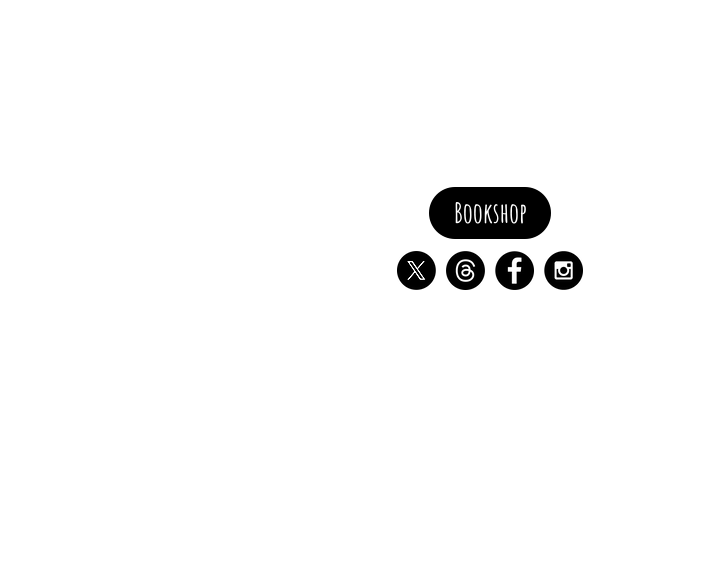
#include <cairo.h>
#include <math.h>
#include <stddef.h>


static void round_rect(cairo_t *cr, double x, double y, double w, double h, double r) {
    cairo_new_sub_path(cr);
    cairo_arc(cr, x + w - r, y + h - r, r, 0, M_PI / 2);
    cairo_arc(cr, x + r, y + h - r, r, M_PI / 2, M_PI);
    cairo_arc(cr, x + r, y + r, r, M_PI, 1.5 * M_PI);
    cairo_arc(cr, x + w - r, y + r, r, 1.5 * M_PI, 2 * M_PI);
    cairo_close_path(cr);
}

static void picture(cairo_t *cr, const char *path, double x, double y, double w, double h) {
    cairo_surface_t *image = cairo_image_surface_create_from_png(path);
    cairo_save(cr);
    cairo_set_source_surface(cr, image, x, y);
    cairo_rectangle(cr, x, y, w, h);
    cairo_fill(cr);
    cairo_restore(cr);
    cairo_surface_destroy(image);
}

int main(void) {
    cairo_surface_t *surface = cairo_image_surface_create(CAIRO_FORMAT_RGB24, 726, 569);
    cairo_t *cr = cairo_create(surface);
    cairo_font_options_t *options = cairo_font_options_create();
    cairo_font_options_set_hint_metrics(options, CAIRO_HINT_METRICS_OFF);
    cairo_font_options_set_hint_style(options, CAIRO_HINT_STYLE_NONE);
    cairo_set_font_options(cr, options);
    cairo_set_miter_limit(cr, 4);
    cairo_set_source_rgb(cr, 1, 1, 1);
    cairo_paint(cr);
    cairo_set_source_rgb(cr, 0, 0, 0);
    round_rect(cr, 430, 188, 120, 50, 25);
    cairo_fill_preserve(cr);
    cairo_stroke(cr);
    cairo_select_font_face(cr, "Amatic SC", CAIRO_FONT_SLANT_NORMAL, CAIRO_FONT_WEIGHT_BOLD);
    cairo_set_font_size(cr, 28);
    cairo_set_source_rgb(cr, 1, 1, 1);
    cairo_move_to(cr, 454, 223);
    cairo_show_text(cr, "Bookshop");
    picture(cr, "img1.png", 397, 251, 39, 39);
    picture(cr, "img2.png", 446, 251, 39, 39);
    picture(cr, "img3.png", 495, 251, 39, 39);
    picture(cr, "img4.png", 544, 251, 39, 39);
    cairo_surface_write_to_png(surface, "page.png");
    cairo_font_options_destroy(options);
    cairo_destroy(cr);
    cairo_surface_destroy(surface);
    return 0;
}
